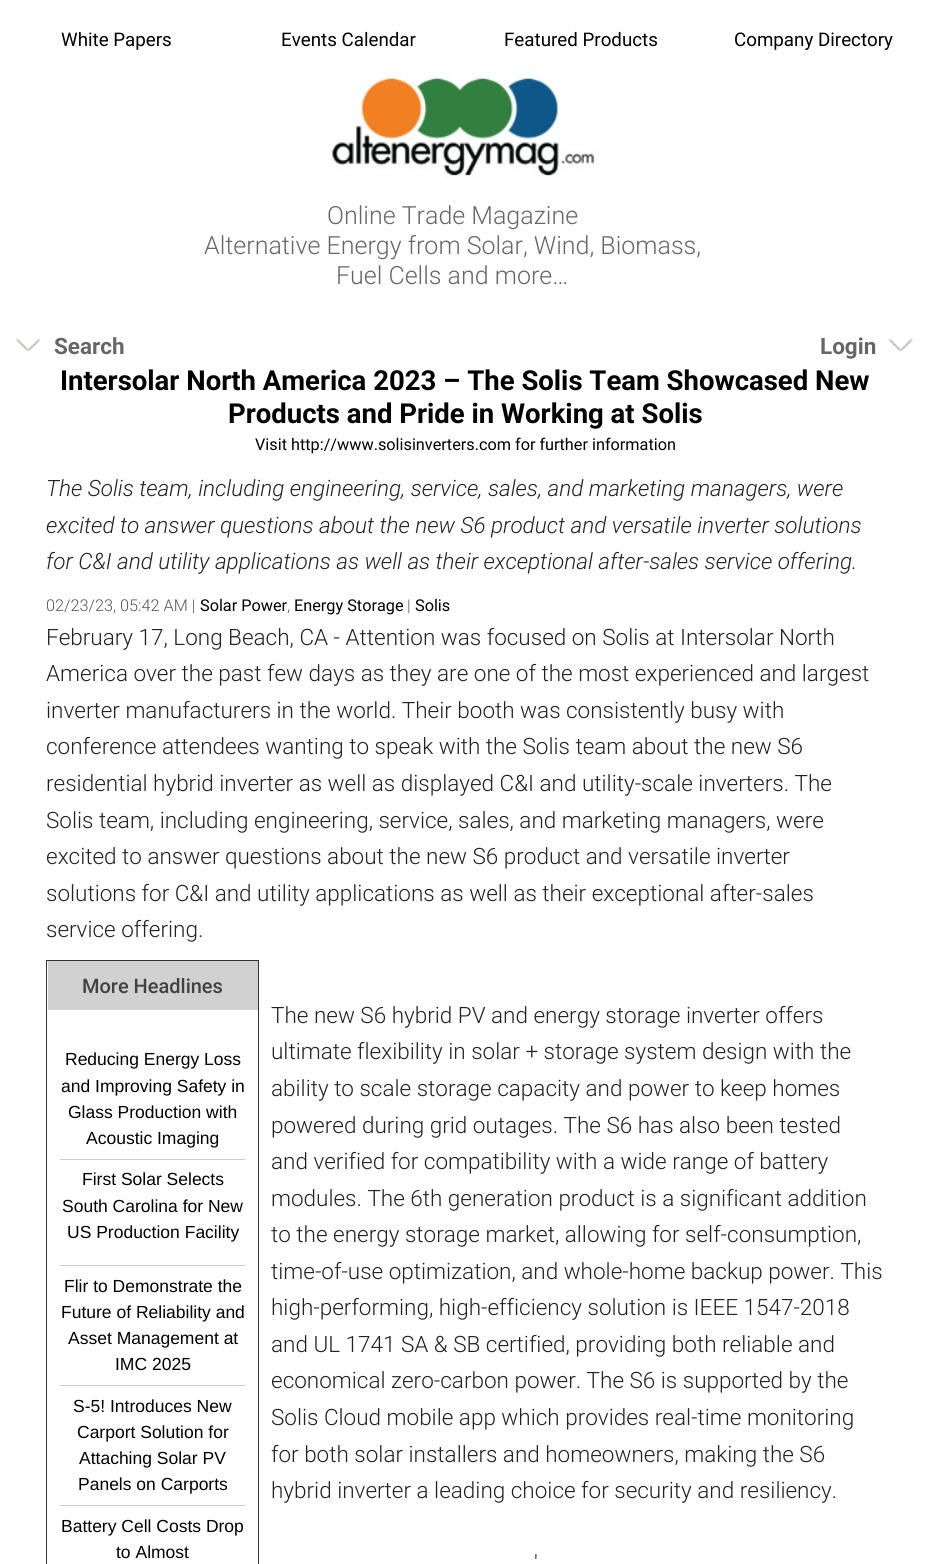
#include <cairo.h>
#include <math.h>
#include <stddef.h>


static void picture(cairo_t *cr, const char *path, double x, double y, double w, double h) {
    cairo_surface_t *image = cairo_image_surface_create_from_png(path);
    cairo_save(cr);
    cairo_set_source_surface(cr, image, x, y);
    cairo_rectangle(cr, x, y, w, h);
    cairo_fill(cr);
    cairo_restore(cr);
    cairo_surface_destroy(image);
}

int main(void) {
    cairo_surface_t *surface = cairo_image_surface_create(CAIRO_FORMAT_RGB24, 929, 1564);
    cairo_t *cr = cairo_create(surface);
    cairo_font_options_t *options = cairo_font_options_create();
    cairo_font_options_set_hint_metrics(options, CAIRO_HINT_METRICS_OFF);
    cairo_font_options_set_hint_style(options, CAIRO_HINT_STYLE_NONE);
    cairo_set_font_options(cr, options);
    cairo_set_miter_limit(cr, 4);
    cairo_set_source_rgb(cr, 1, 1, 1);
    cairo_paint(cr);
    cairo_select_font_face(cr, "Roboto", CAIRO_FONT_SLANT_NORMAL, CAIRO_FONT_WEIGHT_NORMAL);
    cairo_set_font_size(cr, 18.75);
    cairo_set_source_rgb(cr, 0, 0, 0);
    cairo_move_to(cr, 61, 46);
    cairo_show_text(cr, "White Papers");
    cairo_move_to(cr, 281, 46);
    cairo_show_text(cr, "Events Calendar");
    cairo_move_to(cr, 504, 46);
    cairo_show_text(cr, "Featured Products");
    cairo_move_to(cr, 734, 46);
    cairo_show_text(cr, "Company Directory");
    picture(cr, "img1.png", 332, 70, 268, 110);
    cairo_select_font_face(cr, "Roboto Light", CAIRO_FONT_SLANT_NORMAL, CAIRO_FONT_WEIGHT_NORMAL);
    cairo_set_font_size(cr, 25);
    cairo_set_source_rgb(cr, 0.4, 0.4, 0.4);
    cairo_move_to(cr, 327, 224);
    cairo_show_text(cr, "Online Trade Magazine");
    cairo_move_to(cr, 204, 254);
    cairo_show_text(cr, "Alternative Energy from Solar, Wind, Biomass,");
    cairo_move_to(cr, 336, 284);
    cairo_show_text(cr, "Fuel Cells and more…");
    picture(cr, "img2.png", 16, 338, 24, 14);
    cairo_select_font_face(cr, "Roboto", CAIRO_FONT_SLANT_NORMAL, CAIRO_FONT_WEIGHT_BOLD);
    cairo_set_font_size(cr, 22.5);
    cairo_move_to(cr, 54, 354);
    cairo_show_text(cr, "Search");
    picture(cr, "img3.png", 888, 338, 25, 14);
    cairo_move_to(cr, 820, 354);
    cairo_show_text(cr, "Login");
    cairo_set_font_size(cr, 27.5);
    cairo_set_source_rgb(cr, 0, 0, 0);
    cairo_move_to(cr, 60, 390);
    cairo_show_text(cr, "Intersolar North America 2023 – The Solis Team Showcased New");
    cairo_move_to(cr, 228, 423);
    cairo_show_text(cr, "Products and Pride in Working at Solis");
    cairo_select_font_face(cr, "Roboto", CAIRO_FONT_SLANT_NORMAL, CAIRO_FONT_WEIGHT_NORMAL);
    cairo_set_font_size(cr, 16.25);
    cairo_move_to(cr, 255, 450);
    cairo_show_text(cr, "Visit http://www.solisinverters.com for further information");
    cairo_select_font_face(cr, "Roboto Light", CAIRO_FONT_SLANT_ITALIC, CAIRO_FONT_WEIGHT_NORMAL);
    cairo_set_font_size(cr, 22.5);
    cairo_set_source_rgb(cr, 0.133, 0.133, 0.133);
    cairo_move_to(cr, 46, 496);
    cairo_show_text(cr, "The Solis team, including engineering, service, sales, and marketing managers, were");
    cairo_move_to(cr, 46, 533);
    cairo_show_text(cr, "excited to answer questions about the new S6 product and versatile inverter solutions");
    cairo_move_to(cr, 46, 569);
    cairo_show_text(cr, "for C&I and utility applications as well as their exceptional after-sales service offering.");
    cairo_select_font_face(cr, "Roboto Light", CAIRO_FONT_SLANT_NORMAL, CAIRO_FONT_WEIGHT_NORMAL);
    cairo_set_font_size(cr, 16.25);
    cairo_set_source_rgb(cr, 0.333, 0.333, 0.333);
    cairo_move_to(cr, 46, 611);
    cairo_show_text(cr, "02/23/23, 05:42 AM |");
    cairo_select_font_face(cr, "Roboto", CAIRO_FONT_SLANT_NORMAL, CAIRO_FONT_WEIGHT_NORMAL);
    cairo_set_source_rgb(cr, 0, 0, 0);
    cairo_move_to(cr, 200, 611);
    cairo_show_text(cr, "Solar Power");
    cairo_select_font_face(cr, "Roboto Light", CAIRO_FONT_SLANT_NORMAL, CAIRO_FONT_WEIGHT_NORMAL);
    cairo_set_source_rgb(cr, 0.333, 0.333, 0.333);
    cairo_move_to(cr, 287, 611);
    cairo_show_text(cr, ",");
    cairo_select_font_face(cr, "Roboto", CAIRO_FONT_SLANT_NORMAL, CAIRO_FONT_WEIGHT_NORMAL);
    cairo_set_source_rgb(cr, 0, 0, 0);
    cairo_move_to(cr, 294, 611);
    cairo_show_text(cr, "Energy Storage");
    cairo_select_font_face(cr, "Roboto Light", CAIRO_FONT_SLANT_NORMAL, CAIRO_FONT_WEIGHT_NORMAL);
    cairo_set_source_rgb(cr, 0.333, 0.333, 0.333);
    cairo_move_to(cr, 407, 611);
    cairo_show_text(cr, "|");
    cairo_select_font_face(cr, "Roboto", CAIRO_FONT_SLANT_NORMAL, CAIRO_FONT_WEIGHT_NORMAL);
    cairo_set_source_rgb(cr, 0, 0, 0);
    cairo_move_to(cr, 415, 611);
    cairo_show_text(cr, "Solis");
    cairo_select_font_face(cr, "Roboto Light", CAIRO_FONT_SLANT_NORMAL, CAIRO_FONT_WEIGHT_NORMAL);
    cairo_set_font_size(cr, 22.5);
    cairo_set_source_rgb(cr, 0.133, 0.133, 0.133);
    cairo_move_to(cr, 46, 645);
    cairo_show_text(cr, "February 17, Long Beach, CA - Attention was focused on Solis at Intersolar North");
    cairo_move_to(cr, 46, 681);
    cairo_show_text(cr, "America over the past few days as they are one of the most experienced and largest");
    cairo_move_to(cr, 46, 718);
    cairo_show_text(cr, "inverter manufacturers in the world. Their booth was consistently busy with");
    cairo_move_to(cr, 46, 754);
    cairo_show_text(cr, "conference attendees wanting to speak with the Solis team about the new S6");
    cairo_move_to(cr, 46, 791);
    cairo_show_text(cr, "residential hybrid inverter as well as displayed C&I and utility-scale inverters. The");
    cairo_move_to(cr, 46, 828);
    cairo_show_text(cr, "Solis team, including engineering, service, sales, and marketing managers, were");
    cairo_move_to(cr, 46, 864);
    cairo_show_text(cr, "excited to answer questions about the new S6 product and versatile inverter");
    cairo_move_to(cr, 46, 901);
    cairo_show_text(cr, "solutions for C&I and utility applications as well as their exceptional after-sales");
    cairo_move_to(cr, 46, 937);
    cairo_show_text(cr, "service offering.");
    cairo_rectangle(cr, 46.5, 960.5, 212, 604);
    cairo_set_source_rgb(cr, 0.2, 0.2, 0.2);
    cairo_set_line_width(cr, 1);
    cairo_stroke(cr);
    cairo_set_source_rgb(cr, 0.82, 0.82, 0.82);
    cairo_rectangle(cr, 48, 961, 210, 49);
    cairo_fill(cr);
    cairo_select_font_face(cr, "Roboto Medium", CAIRO_FONT_SLANT_NORMAL, CAIRO_FONT_WEIGHT_NORMAL);
    cairo_set_font_size(cr, 20);
    cairo_set_source_rgb(cr, 0.255, 0.255, 0.255);
    cairo_move_to(cr, 82, 993);
    cairo_show_text(cr, "More Headlines");
    cairo_select_font_face(cr, "Liberation Sans", CAIRO_FONT_SLANT_NORMAL, CAIRO_FONT_WEIGHT_NORMAL);
    cairo_set_font_size(cr, 17.5);
    cairo_set_source_rgb(cr, 0, 0, 0);
    cairo_move_to(cr, 65, 1065);
    cairo_show_text(cr, "Reducing Energy Loss");
    cairo_move_to(cr, 61, 1092);
    cairo_show_text(cr, "and Improving Safety in");
    cairo_move_to(cr, 68, 1118);
    cairo_show_text(cr, "Glass Production with");
    cairo_move_to(cr, 86, 1144);
    cairo_show_text(cr, "Acoustic Imaging");
    cairo_set_source_rgb(cr, 0.8, 0.8, 0.8);
    cairo_rectangle(cr, 60, 1159, 185, 1);
    cairo_fill(cr);
    cairo_set_source_rgb(cr, 0, 0, 0);
    cairo_move_to(cr, 82, 1185);
    cairo_show_text(cr, "First Solar Selects");
    cairo_move_to(cr, 62, 1212);
    cairo_show_text(cr, "South Carolina for New");
    cairo_move_to(cr, 67, 1238);
    cairo_show_text(cr, "US Production Facility");
    cairo_set_source_rgb(cr, 0.8, 0.8, 0.8);
    cairo_rectangle(cr, 60, 1265, 185, 1);
    cairo_fill(cr);
    cairo_set_source_rgb(cr, 0, 0, 0);
    cairo_move_to(cr, 64, 1292);
    cairo_show_text(cr, "Flir to Demonstrate the");
    cairo_move_to(cr, 61, 1318);
    cairo_show_text(cr, "Future of Reliability and");
    cairo_move_to(cr, 68, 1344);
    cairo_show_text(cr, "Asset Management at");
    cairo_move_to(cr, 115, 1370);
    cairo_show_text(cr, "IMC 2025");
    cairo_set_source_rgb(cr, 0.8, 0.8, 0.8);
    cairo_rectangle(cr, 60, 1385, 185, 1);
    cairo_fill(cr);
    cairo_set_source_rgb(cr, 0, 0, 0);
    cairo_move_to(cr, 73, 1412);
    cairo_show_text(cr, "S-5! Introduces New");
    cairo_move_to(cr, 77, 1438);
    cairo_show_text(cr, "Carport Solution for");
    cairo_move_to(cr, 79, 1464);
    cairo_show_text(cr, "Attaching Solar PV");
    cairo_move_to(cr, 78, 1490);
    cairo_show_text(cr, "Panels on Carports");
    cairo_set_source_rgb(cr, 0.8, 0.8, 0.8);
    cairo_rectangle(cr, 60, 1505, 185, 1);
    cairo_fill(cr);
    cairo_set_source_rgb(cr, 0, 0, 0);
    cairo_move_to(cr, 61, 1532);
    cairo_show_text(cr, "Battery Cell Costs Drop");
    cairo_move_to(cr, 116, 1558);
    cairo_show_text(cr, "to Almost");
    cairo_select_font_face(cr, "Roboto Light", CAIRO_FONT_SLANT_NORMAL, CAIRO_FONT_WEIGHT_NORMAL);
    cairo_set_font_size(cr, 22.5);
    cairo_set_source_rgb(cr, 0.133, 0.133, 0.133);
    cairo_move_to(cr, 271, 1023);
    cairo_show_text(cr, "The new S6 hybrid PV and energy storage inverter offers");
    cairo_move_to(cr, 271, 1059);
    cairo_show_text(cr, "ultimate flexibility in solar + storage system design with the");
    cairo_move_to(cr, 271, 1096);
    cairo_show_text(cr, "ability to scale storage capacity and power to keep homes");
    cairo_move_to(cr, 271, 1133);
    cairo_show_text(cr, "powered during grid outages. The S6 has also been tested");
    cairo_move_to(cr, 271, 1169);
    cairo_show_text(cr, "and verified for compatibility with a wide range of battery");
    cairo_move_to(cr, 271, 1206);
    cairo_show_text(cr, "modules. The 6th generation product is a significant addition");
    cairo_move_to(cr, 271, 1242);
    cairo_show_text(cr, "to the energy storage market, allowing for self-consumption,");
    cairo_move_to(cr, 271, 1279);
    cairo_show_text(cr, "time-of-use optimization, and whole-home backup power. This");
    cairo_move_to(cr, 271, 1315);
    cairo_show_text(cr, "high-performing, high-efficiency solution is IEEE 1547-2018");
    cairo_move_to(cr, 271, 1352);
    cairo_show_text(cr, "and UL 1741 SA & SB certified, providing both reliable and");
    cairo_move_to(cr, 271, 1388);
    cairo_show_text(cr, "economical zero-carbon power. The S6 is supported by the");
    cairo_move_to(cr, 271, 1425);
    cairo_show_text(cr, "Solis Cloud mobile app which provides real-time monitoring");
    cairo_move_to(cr, 271, 1462);
    cairo_show_text(cr, "for both solar installers and homeowners, making the S6");
    cairo_move_to(cr, 271, 1498);
    cairo_show_text(cr, "hybrid inverter a leading choice for security and resiliency.");
    cairo_move_to(cr, 534, 1571);
    cairo_show_text(cr, "'");
    cairo_surface_write_to_png(surface, "page.png");
    cairo_font_options_destroy(options);
    cairo_destroy(cr);
    cairo_surface_destroy(surface);
    return 0;
}
